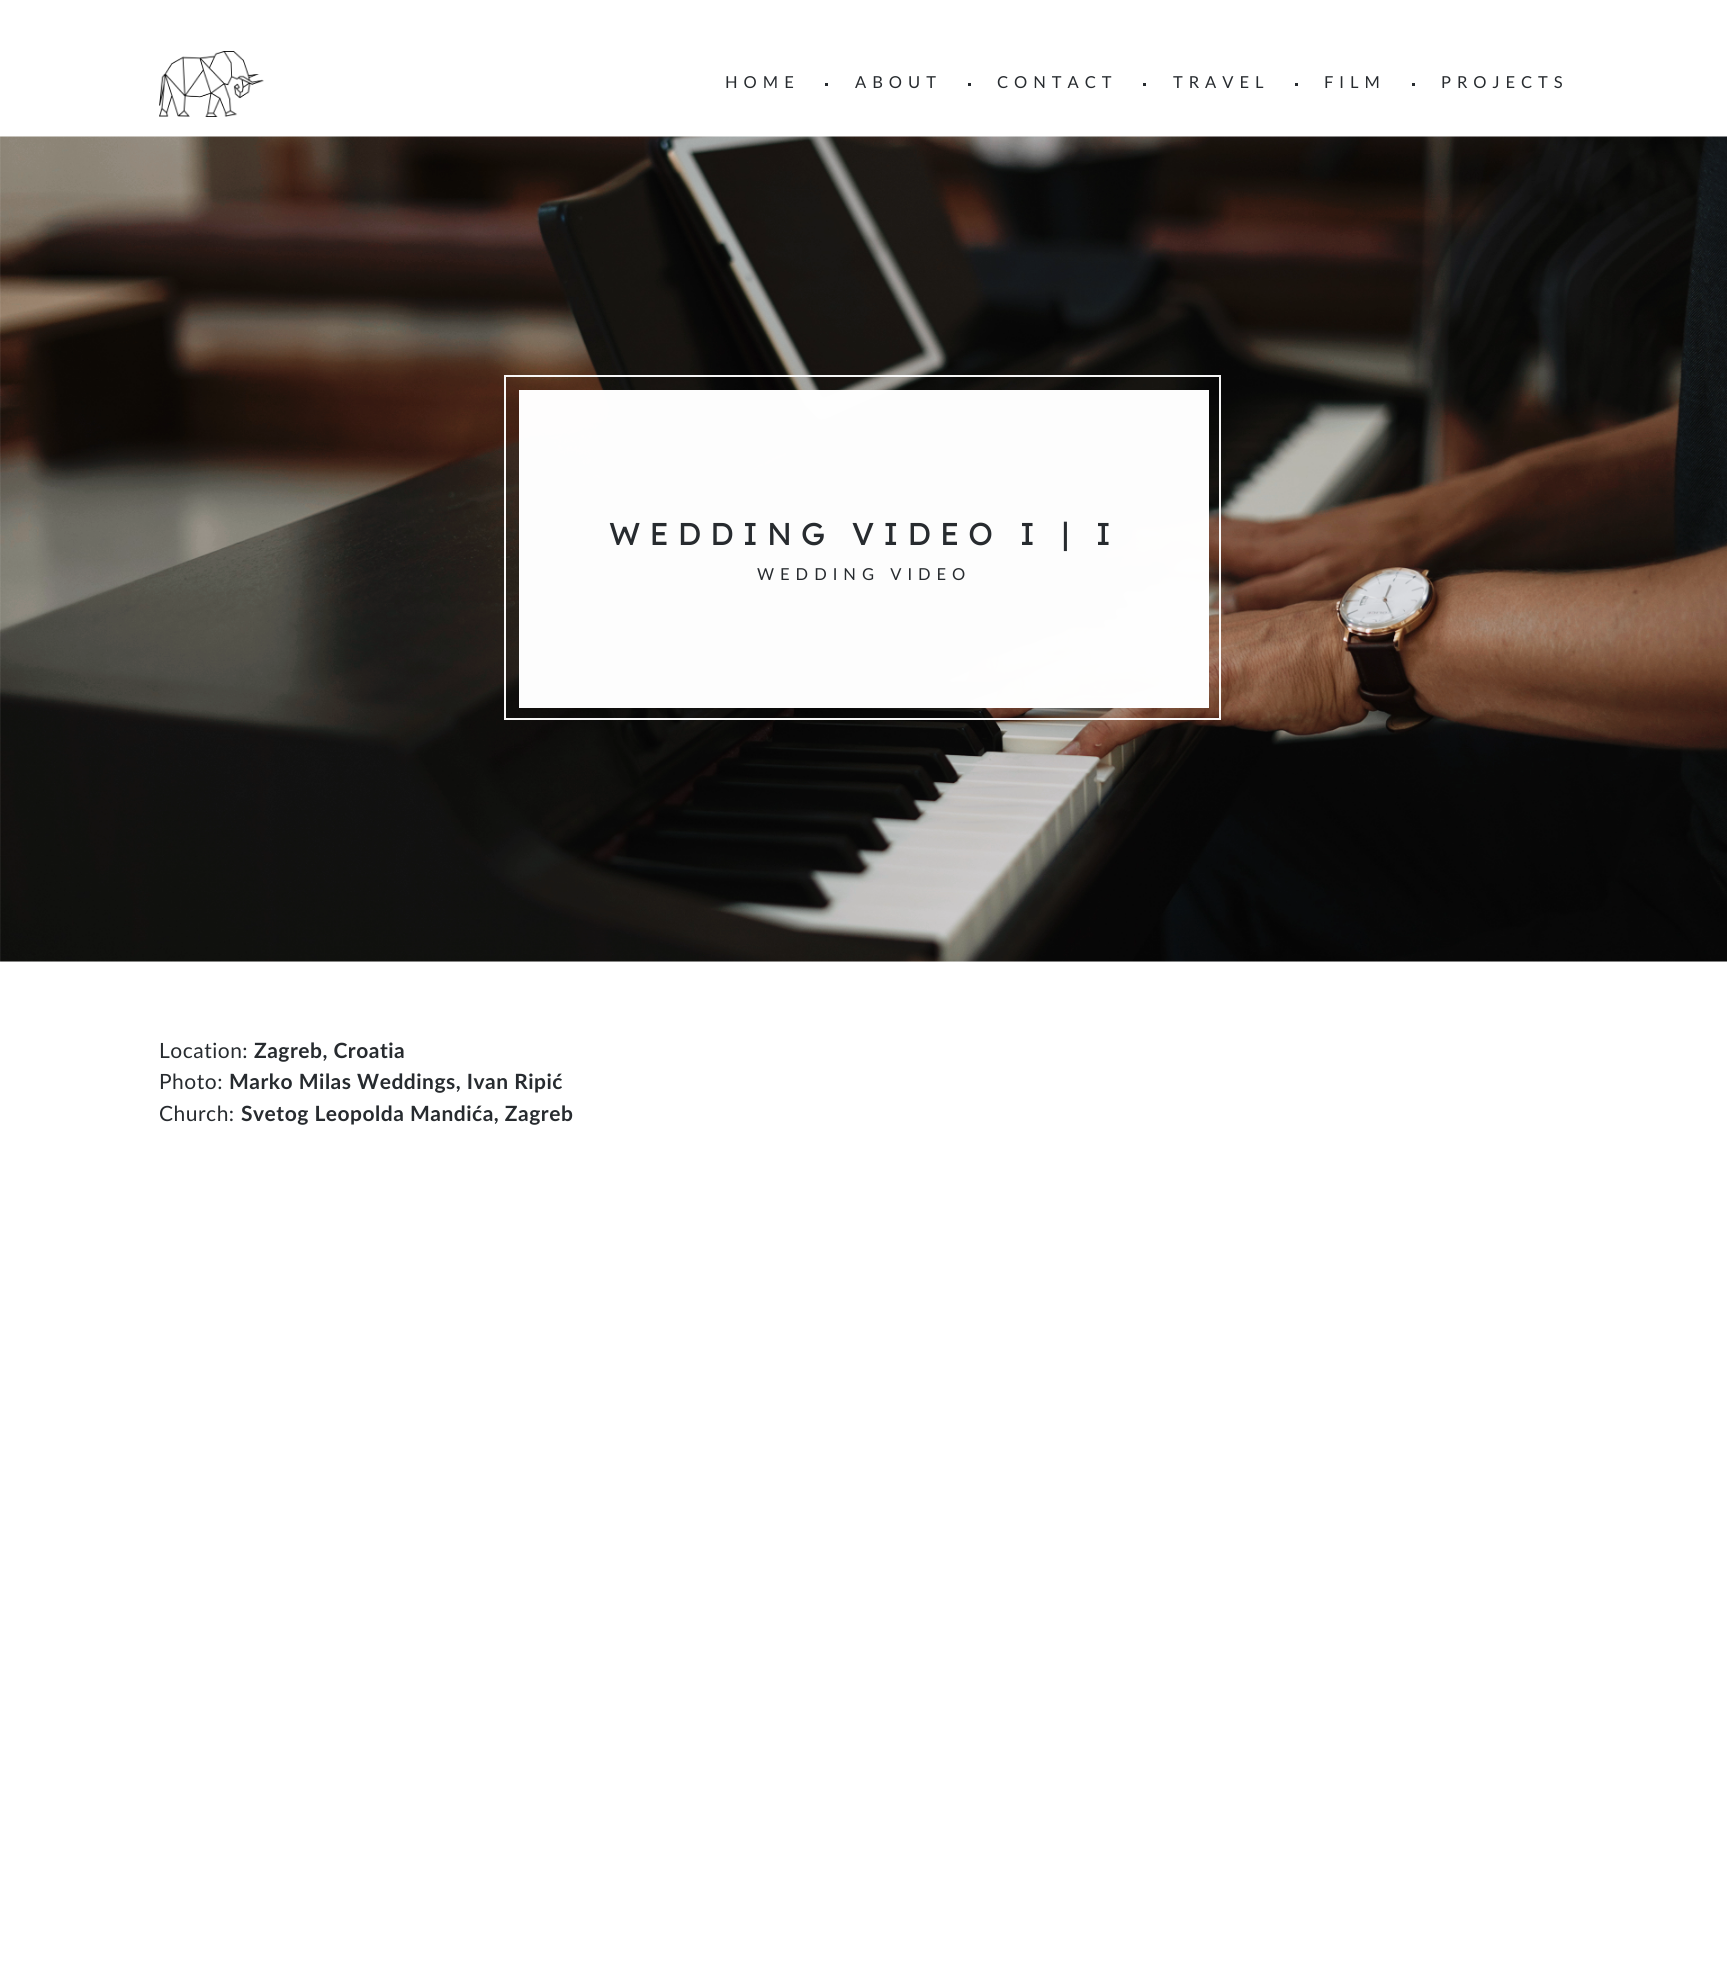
#include <cairo.h>
#include <math.h>
#include <stddef.h>


static void spaced_text(cairo_t *cr, double x, double y, const char *s, double letter, double word) {
    cairo_move_to(cr, x, y);
    while (*s) {
        char ch[5] = {0};
        int n = 0;
        do ch[n++] = *s++; while ((*s & 0xC0) == 0x80);
        cairo_show_text(cr, ch);
        cairo_rel_move_to(cr, letter + word * (*ch == ' '), 0);
    }
}

static void picture(cairo_t *cr, const char *path, double x, double y, double w, double h) {
    cairo_surface_t *image = cairo_image_surface_create_from_png(path);
    cairo_save(cr);
    cairo_set_source_surface(cr, image, x, y);
    cairo_rectangle(cr, x, y, w, h);
    cairo_fill(cr);
    cairo_restore(cr);
    cairo_surface_destroy(image);
}

int main(void) {
    cairo_surface_t *surface = cairo_image_surface_create(CAIRO_FORMAT_RGB24, 1727, 1983);
    cairo_t *cr = cairo_create(surface);
    cairo_font_options_t *options = cairo_font_options_create();
    cairo_font_options_set_hint_metrics(options, CAIRO_HINT_METRICS_OFF);
    cairo_font_options_set_hint_style(options, CAIRO_HINT_STYLE_NONE);
    cairo_set_font_options(cr, options);
    cairo_set_miter_limit(cr, 4);
    cairo_set_source_rgb(cr, 1, 1, 1);
    cairo_paint(cr);
    picture(cr, "img1.png", 159, 51, 105, 66);
    cairo_select_font_face(cr, "Lato", CAIRO_FONT_SLANT_NORMAL, CAIRO_FONT_WEIGHT_NORMAL);
    cairo_set_font_size(cr, 16.5);
    cairo_set_source_rgb(cr, 0.153, 0.169, 0.184);
    spaced_text(cr, 725, 88, "HOME", 6, 0);
    cairo_rectangle(cr, 825, 83, 3, 3);
    cairo_fill(cr);
    spaced_text(cr, 855, 88, "ABOUT", 6, 0);
    cairo_rectangle(cr, 968, 83, 3, 3);
    cairo_fill(cr);
    spaced_text(cr, 997, 88, "CONTACT", 6, 0);
    cairo_rectangle(cr, 1143, 83, 3, 3);
    cairo_fill(cr);
    spaced_text(cr, 1173, 88, "TRAVEL", 6, 0);
    cairo_rectangle(cr, 1295, 83, 3, 3);
    cairo_fill(cr);
    spaced_text(cr, 1324, 88, "FILM", 6, 0);
    cairo_rectangle(cr, 1412, 83, 3, 3);
    cairo_fill(cr);
    spaced_text(cr, 1441, 88, "PROJECTS", 6, 0);
    cairo_set_source_rgb(cr, 0.973, 0.973, 0.973);
    cairo_rectangle(cr, 0, 137, 1727, 825);
    cairo_fill(cr);
    picture(cr, "img2.png", 0, 136, 1727, 826);
    cairo_set_source_rgba(cr, 1, 1, 1, 0.99);
    cairo_rectangle(cr, 519, 390, 690, 318);
    cairo_fill(cr);
    cairo_rectangle(cr, 505, 376, 715, 343);
    cairo_set_source_rgba(cr, 1, 1, 1, 0.96);
    cairo_stroke(cr);
    cairo_select_font_face(cr, "Lexend Deca", CAIRO_FONT_SLANT_NORMAL, CAIRO_FONT_WEIGHT_NORMAL);
    cairo_set_font_size(cr, 31.5);
    cairo_set_source_rgb(cr, 0.153, 0.169, 0.184);
    spaced_text(cr, 609, 545, "WEDDING VIDEO I | I", 9, 0);
    cairo_select_font_face(cr, "Lato", CAIRO_FONT_SLANT_NORMAL, CAIRO_FONT_WEIGHT_NORMAL);
    cairo_set_font_size(cr, 16.5);
    spaced_text(cr, 757, 580, "WEDDING VIDEO", 6, 0);
    cairo_set_font_size(cr, 21);
    spaced_text(cr, 159, 1058, "Location:", 0.5, 0);
    cairo_select_font_face(cr, "Lato", CAIRO_FONT_SLANT_NORMAL, CAIRO_FONT_WEIGHT_BOLD);
    spaced_text(cr, 254, 1058, "Zagreb, Croatia", 0.5, 0);
    cairo_select_font_face(cr, "Lato", CAIRO_FONT_SLANT_NORMAL, CAIRO_FONT_WEIGHT_NORMAL);
    spaced_text(cr, 159, 1089, "Photo:", 0.5, 0);
    cairo_select_font_face(cr, "Lato", CAIRO_FONT_SLANT_NORMAL, CAIRO_FONT_WEIGHT_BOLD);
    spaced_text(cr, 229, 1089, "Marko Milas Weddings, Ivan Ripić", 0.5, 0);
    cairo_select_font_face(cr, "Lato", CAIRO_FONT_SLANT_NORMAL, CAIRO_FONT_WEIGHT_NORMAL);
    spaced_text(cr, 159, 1121, "Church:", 0.5, 0);
    cairo_select_font_face(cr, "Lato", CAIRO_FONT_SLANT_NORMAL, CAIRO_FONT_WEIGHT_BOLD);
    spaced_text(cr, 241, 1121, "Svetog Leopolda Mandića, Zagreb", 0.5, 0);
    cairo_surface_write_to_png(surface, "page.png");
    cairo_font_options_destroy(options);
    cairo_destroy(cr);
    cairo_surface_destroy(surface);
    return 0;
}
